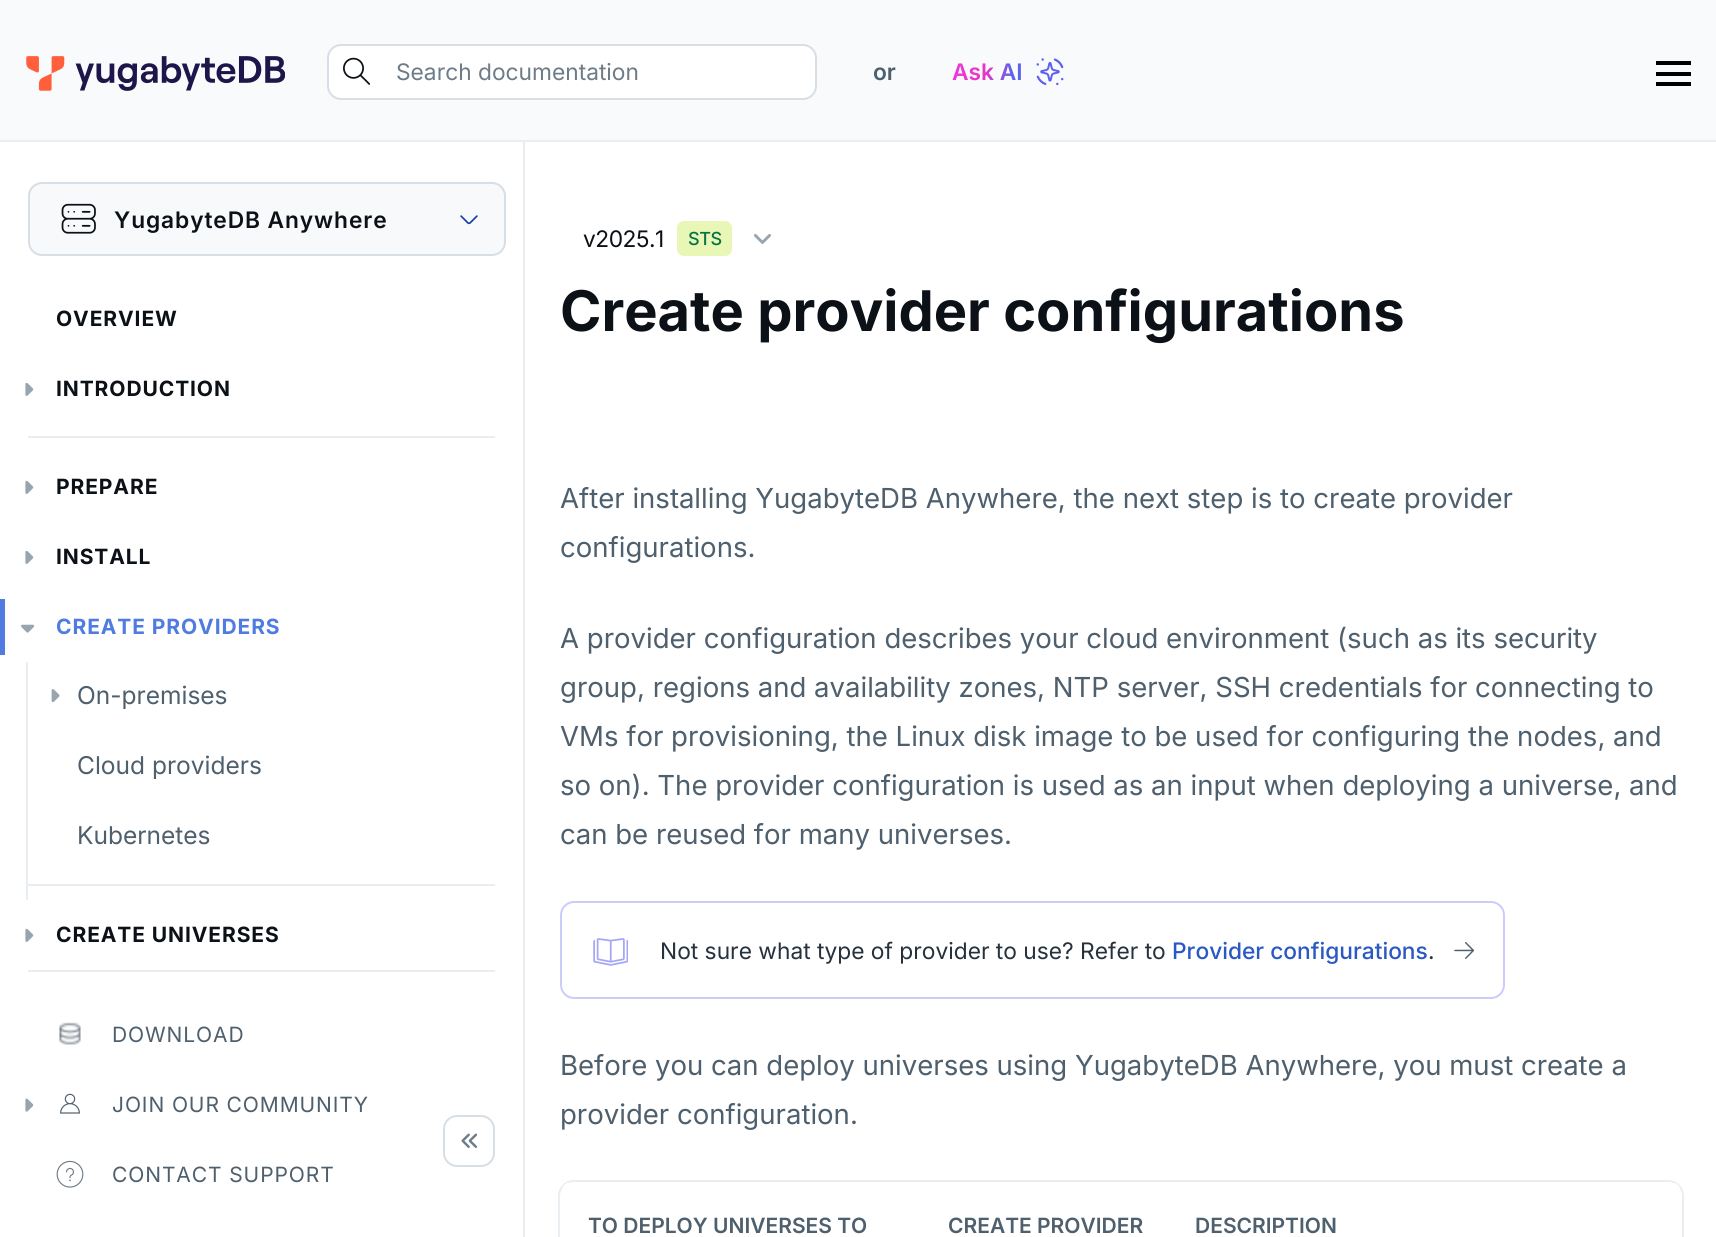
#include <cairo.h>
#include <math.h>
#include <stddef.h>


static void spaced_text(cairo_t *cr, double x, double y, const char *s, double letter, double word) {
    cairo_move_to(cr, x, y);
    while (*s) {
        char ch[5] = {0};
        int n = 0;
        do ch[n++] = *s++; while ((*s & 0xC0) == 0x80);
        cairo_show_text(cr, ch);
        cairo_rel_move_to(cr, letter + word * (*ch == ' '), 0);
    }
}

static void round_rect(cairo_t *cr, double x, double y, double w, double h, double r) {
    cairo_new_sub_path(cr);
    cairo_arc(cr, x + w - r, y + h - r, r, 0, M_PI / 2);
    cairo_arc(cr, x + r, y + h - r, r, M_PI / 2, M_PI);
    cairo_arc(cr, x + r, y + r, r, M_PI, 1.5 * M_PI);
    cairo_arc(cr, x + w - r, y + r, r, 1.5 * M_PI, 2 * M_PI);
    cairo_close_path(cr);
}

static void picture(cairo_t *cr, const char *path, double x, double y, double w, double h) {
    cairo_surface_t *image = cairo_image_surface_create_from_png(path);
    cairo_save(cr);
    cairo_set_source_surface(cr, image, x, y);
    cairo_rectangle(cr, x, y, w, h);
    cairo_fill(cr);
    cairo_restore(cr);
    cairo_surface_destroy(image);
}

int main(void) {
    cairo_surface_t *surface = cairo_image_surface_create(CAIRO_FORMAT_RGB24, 1716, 1237);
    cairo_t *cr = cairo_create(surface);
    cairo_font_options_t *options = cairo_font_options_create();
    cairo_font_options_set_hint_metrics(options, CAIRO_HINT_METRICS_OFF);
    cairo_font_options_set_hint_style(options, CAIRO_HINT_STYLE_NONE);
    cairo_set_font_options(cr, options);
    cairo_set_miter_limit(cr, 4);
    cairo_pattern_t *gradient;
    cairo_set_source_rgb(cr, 1, 1, 1);
    cairo_paint(cr);
    cairo_set_source_rgb(cr, 0.969, 0.98, 0.988);
    cairo_rectangle(cr, 0, 0, 1716, 140);
    cairo_fill(cr);
    picture(cr, "img1.png", 26, 56, 259, 35);
    cairo_set_source_rgb(cr, 1, 1, 1);
    round_rect(cr, 328, 45, 488, 54, 13);
    cairo_fill_preserve(cr);
    cairo_set_source_rgb(cr, 0.843, 0.871, 0.894);
    cairo_stroke(cr);
    picture(cr, "img2.png", 343, 57, 27, 28);
    cairo_select_font_face(cr, "Inter", CAIRO_FONT_SLANT_NORMAL, CAIRO_FONT_WEIGHT_NORMAL);
    cairo_set_font_size(cr, 22.75);
    cairo_set_source_rgb(cr, 0.427, 0.486, 0.533);
    cairo_move_to(cr, 396, 80);
    cairo_show_text(cr, "Search documentation");
    cairo_select_font_face(cr, "Inter SemiBold", CAIRO_FONT_SLANT_NORMAL, CAIRO_FONT_WEIGHT_NORMAL);
    cairo_set_source_rgb(cr, 0.306, 0.373, 0.427);
    cairo_move_to(cr, 873, 80);
    cairo_show_text(cr, "or");
    gradient = cairo_pattern_create_linear(929, 69, 1095, 72);
    cairo_pattern_add_color_stop_rgba(gradient, 0.04, 0.929, 0.208, 0.925, 1);
    cairo_pattern_add_color_stop_rgba(gradient, 0.33, 0.929, 0.208, 0.773, 1);
    cairo_pattern_add_color_stop_rgba(gradient, 0.5, 0.369, 0.376, 0.941, 1);
    cairo_set_source(cr, gradient);
    cairo_pattern_destroy(gradient);
    cairo_move_to(cr, 952, 80);
    cairo_show_text(cr, "Ask AI");
    picture(cr, "img3.png", 1036, 58, 28, 28);
    cairo_set_source_rgb(cr, 0, 0, 0);
    cairo_rectangle(cr, 1656, 61, 35, 4);
    cairo_fill(cr);
    cairo_rectangle(cr, 1656, 82, 35, 4);
    cairo_fill(cr);
    cairo_rectangle(cr, 1656, 72, 35, 4);
    cairo_fill(cr);
    cairo_set_source_rgb(cr, 0.914, 0.933, 0.949);
    cairo_rectangle(cr, 523, 140, 2, 1097);
    cairo_fill(cr);
    cairo_rectangle(cr, 0, 140, 1716, 2);
    cairo_fill(cr);
    cairo_set_source_rgb(cr, 0.969, 0.976, 0.984);
    round_rect(cr, 29, 183, 476, 72, 13);
    cairo_fill_preserve(cr);
    cairo_set_source_rgb(cr, 0.843, 0.871, 0.894);
    cairo_stroke(cr);
    picture(cr, "img4.png", 61, 203, 35, 31);
    cairo_set_source_rgb(cr, 0.043, 0.067, 0.09);
    spaced_text(cr, 114, 228, "YugabyteDB Anywhere", 0.9, 0);
    picture(cr, "img5.png", 460, 215, 18, 10);
    cairo_select_font_face(cr, "Inter", CAIRO_FONT_SLANT_NORMAL, CAIRO_FONT_WEIGHT_BOLD);
    cairo_set_font_size(cr, 21);
    spaced_text(cr, 56, 326, "OVERVIEW", 0.9, 0);
    picture(cr, "img6.png", 25, 382, 9, 14);
    spaced_text(cr, 56, 396, "INTRODUCTION", 0.9, 0);
    cairo_set_source_rgb(cr, 0.914, 0.933, 0.949);
    cairo_rectangle(cr, 28, 436, 467, 2);
    cairo_fill(cr);
    picture(cr, "img6.png", 25, 480, 9, 14);
    cairo_set_source_rgb(cr, 0.043, 0.067, 0.09);
    spaced_text(cr, 56, 494, "PREPARE", 0.9, 0);
    picture(cr, "img6.png", 25, 550, 9, 14);
    spaced_text(cr, 56, 564, "INSTALL", 0.9, 0);
    picture(cr, "img7.png", 21, 624, 14, 9);
    cairo_set_source_rgb(cr, 0.314, 0.486, 0.882);
    cairo_rectangle(cr, 0, 599, 5, 56);
    cairo_fill(cr);
    spaced_text(cr, 56, 634, "CREATE PROVIDERS", 0.9, 0);
    cairo_set_source_rgb(cr, 0.914, 0.933, 0.949);
    cairo_rectangle(cr, 26, 662, 2, 238);
    cairo_fill(cr);
    picture(cr, "img8.png", 51, 689, 9, 14);
    cairo_select_font_face(cr, "Inter", CAIRO_FONT_SLANT_NORMAL, CAIRO_FONT_WEIGHT_NORMAL);
    cairo_set_font_size(cr, 24.5);
    cairo_set_source_rgb(cr, 0.306, 0.373, 0.427);
    cairo_move_to(cr, 77, 704);
    cairo_show_text(cr, "On-premises");
    cairo_move_to(cr, 77, 774);
    cairo_show_text(cr, "Cloud providers");
    cairo_move_to(cr, 77, 844);
    cairo_show_text(cr, "Kubernetes");
    cairo_set_source_rgb(cr, 0.914, 0.933, 0.949);
    cairo_rectangle(cr, 28, 884, 467, 2);
    cairo_fill(cr);
    picture(cr, "img6.png", 25, 928, 9, 14);
    cairo_select_font_face(cr, "Inter", CAIRO_FONT_SLANT_NORMAL, CAIRO_FONT_WEIGHT_BOLD);
    cairo_set_font_size(cr, 21);
    cairo_set_source_rgb(cr, 0.043, 0.067, 0.09);
    spaced_text(cr, 56, 942, "CREATE UNIVERSES", 0.9, 0);
    cairo_set_source_rgb(cr, 0.914, 0.933, 0.949);
    cairo_rectangle(cr, 28, 970, 467, 2);
    cairo_fill(cr);
    picture(cr, "img9.png", 59, 1022, 22, 23);
    cairo_select_font_face(cr, "Inter", CAIRO_FONT_SLANT_NORMAL, CAIRO_FONT_WEIGHT_NORMAL);
    cairo_set_source_rgb(cr, 0.306, 0.373, 0.427);
    spaced_text(cr, 112, 1042, "DOWNLOAD", 0.9, 0);
    picture(cr, "img10.png", 25, 1098, 9, 14);
    picture(cr, "img11.png", 60, 1093, 20, 21);
    spaced_text(cr, 112, 1112, "JOIN OUR COMMUNITY", 0.9, 0);
    picture(cr, "img12.png", 56, 1160, 28, 28);
    spaced_text(cr, 112, 1182, "CONTACT SUPPORT", 0.9, 0);
    round_rect(cr, 444, 1116, 50, 50, 13);
    cairo_set_source_rgb(cr, 0.843, 0.871, 0.894);
    cairo_stroke(cr);
    picture(cr, "img13.png", 461, 1133, 17, 15);
    cairo_set_font_size(cr, 22.75);
    cairo_set_source_rgb(cr, 0.043, 0.067, 0.09);
    spaced_text(cr, 583, 247, "v2025.1", -0.5, 0);
    cairo_set_source_rgb(cr, 0.91, 0.965, 0.714);
    round_rect(cr, 677, 221, 55, 35, 7);
    cairo_fill(cr);
    cairo_select_font_face(cr, "Inter Medium", CAIRO_FONT_SLANT_NORMAL, CAIRO_FONT_WEIGHT_NORMAL);
    cairo_set_font_size(cr, 18);
    cairo_set_source_rgb(cr, 0.035, 0.451, 0.271);
    spaced_text(cr, 688, 245, "STS", -0.5, 0);
    picture(cr, "img14.png", 754, 234, 17, 10);
    cairo_select_font_face(cr, "Inter", CAIRO_FONT_SLANT_NORMAL, CAIRO_FONT_WEIGHT_BOLD);
    cairo_set_font_size(cr, 56);
    cairo_set_source_rgb(cr, 0.043, 0.067, 0.09);
    cairo_move_to(cr, 560, 331);
    cairo_show_text(cr, "Create provider configurations");
    cairo_select_font_face(cr, "Inter", CAIRO_FONT_SLANT_NORMAL, CAIRO_FONT_WEIGHT_NORMAL);
    cairo_set_font_size(cr, 27.55);
    cairo_set_source_rgb(cr, 0.306, 0.373, 0.427);
    cairo_move_to(cr, 560, 508);
    cairo_show_text(cr, "After installing YugabyteDB Anywhere, the next step is to create provider");
    cairo_move_to(cr, 560, 557);
    cairo_show_text(cr, "configurations.");
    cairo_move_to(cr, 560, 648);
    cairo_show_text(cr, "A provider configuration describes your cloud environment (such as its security");
    cairo_move_to(cr, 560, 697);
    cairo_show_text(cr, "group, regions and availability zones, NTP server, SSH credentials for connecting to");
    cairo_move_to(cr, 560, 746);
    cairo_show_text(cr, "VMs for provisioning, the Linux disk image to be used for configuring the nodes, and");
    cairo_move_to(cr, 560, 795);
    cairo_show_text(cr, "so on). The provider configuration is used as an input when deploying a universe, and");
    cairo_move_to(cr, 560, 844);
    cairo_show_text(cr, "can be reused for many universes.");
    round_rect(cr, 561, 902, 943, 96, 13);
    cairo_set_source_rgb(cr, 0.796, 0.8, 0.984);
    cairo_stroke(cr);
    picture(cr, "img15.png", 593, 938, 35, 28);
    cairo_set_font_size(cr, 22.75);
    cairo_set_source_rgb(cr, 0.145, 0.196, 0.239);
    cairo_move_to(cr, 660, 959);
    cairo_show_text(cr, "Not sure what type of provider to use? Refer to");
    cairo_select_font_face(cr, "Inter Medium", CAIRO_FONT_SLANT_NORMAL, CAIRO_FONT_WEIGHT_NORMAL);
    cairo_set_source_rgb(cr, 0.169, 0.349, 0.765);
    cairo_move_to(cr, 1172, 959);
    cairo_show_text(cr, "Provider configurations");
    cairo_select_font_face(cr, "Inter", CAIRO_FONT_SLANT_NORMAL, CAIRO_FONT_WEIGHT_NORMAL);
    cairo_set_source_rgb(cr, 0.145, 0.196, 0.239);
    cairo_move_to(cr, 1428, 959);
    cairo_show_text(cr, ".");
    picture(cr, "img16.png", 1454, 942, 21, 17);
    cairo_set_font_size(cr, 27.55);
    cairo_set_source_rgb(cr, 0.306, 0.373, 0.427);
    cairo_move_to(cr, 560, 1075);
    cairo_show_text(cr, "Before you can deploy universes using YugabyteDB Anywhere, you must create a");
    cairo_move_to(cr, 560, 1124);
    cairo_show_text(cr, "provider configuration.");
    round_rect(cr, 559, 1181, 1124, 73, 15);
    cairo_set_source_rgb(cr, 0.914, 0.933, 0.949);
    cairo_stroke(cr);
    cairo_save(cr);
    round_rect(cr, 560, 1181, 1122, 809, 14);
    cairo_clip(cr);
    cairo_set_source_rgb(cr, 1, 1, 1);
    cairo_rectangle(cr, 562, 1183, 360, 54);
    cairo_fill(cr);
    cairo_restore(cr);
    cairo_select_font_face(cr, "Inter SemiBold", CAIRO_FONT_SLANT_NORMAL, CAIRO_FONT_WEIGHT_NORMAL);
    cairo_set_font_size(cr, 21);
    cairo_set_source_rgb(cr, 0.306, 0.373, 0.427);
    cairo_move_to(cr, 588, 1233);
    cairo_show_text(cr, "TO DEPLOY UNIVERSES TO");
    cairo_move_to(cr, 948, 1233);
    cairo_show_text(cr, "CREATE PROVIDER");
    cairo_save(cr);
    round_rect(cr, 560, 1181, 1122, 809, 14);
    cairo_clip(cr);
    cairo_set_source_rgb(cr, 1, 1, 1);
    cairo_rectangle(cr, 1169, 1183, 511, 54);
    cairo_fill(cr);
    cairo_restore(cr);
    cairo_move_to(cr, 1195, 1233);
    cairo_show_text(cr, "DESCRIPTION");
    cairo_surface_write_to_png(surface, "page.png");
    cairo_font_options_destroy(options);
    cairo_destroy(cr);
    cairo_surface_destroy(surface);
    return 0;
}
